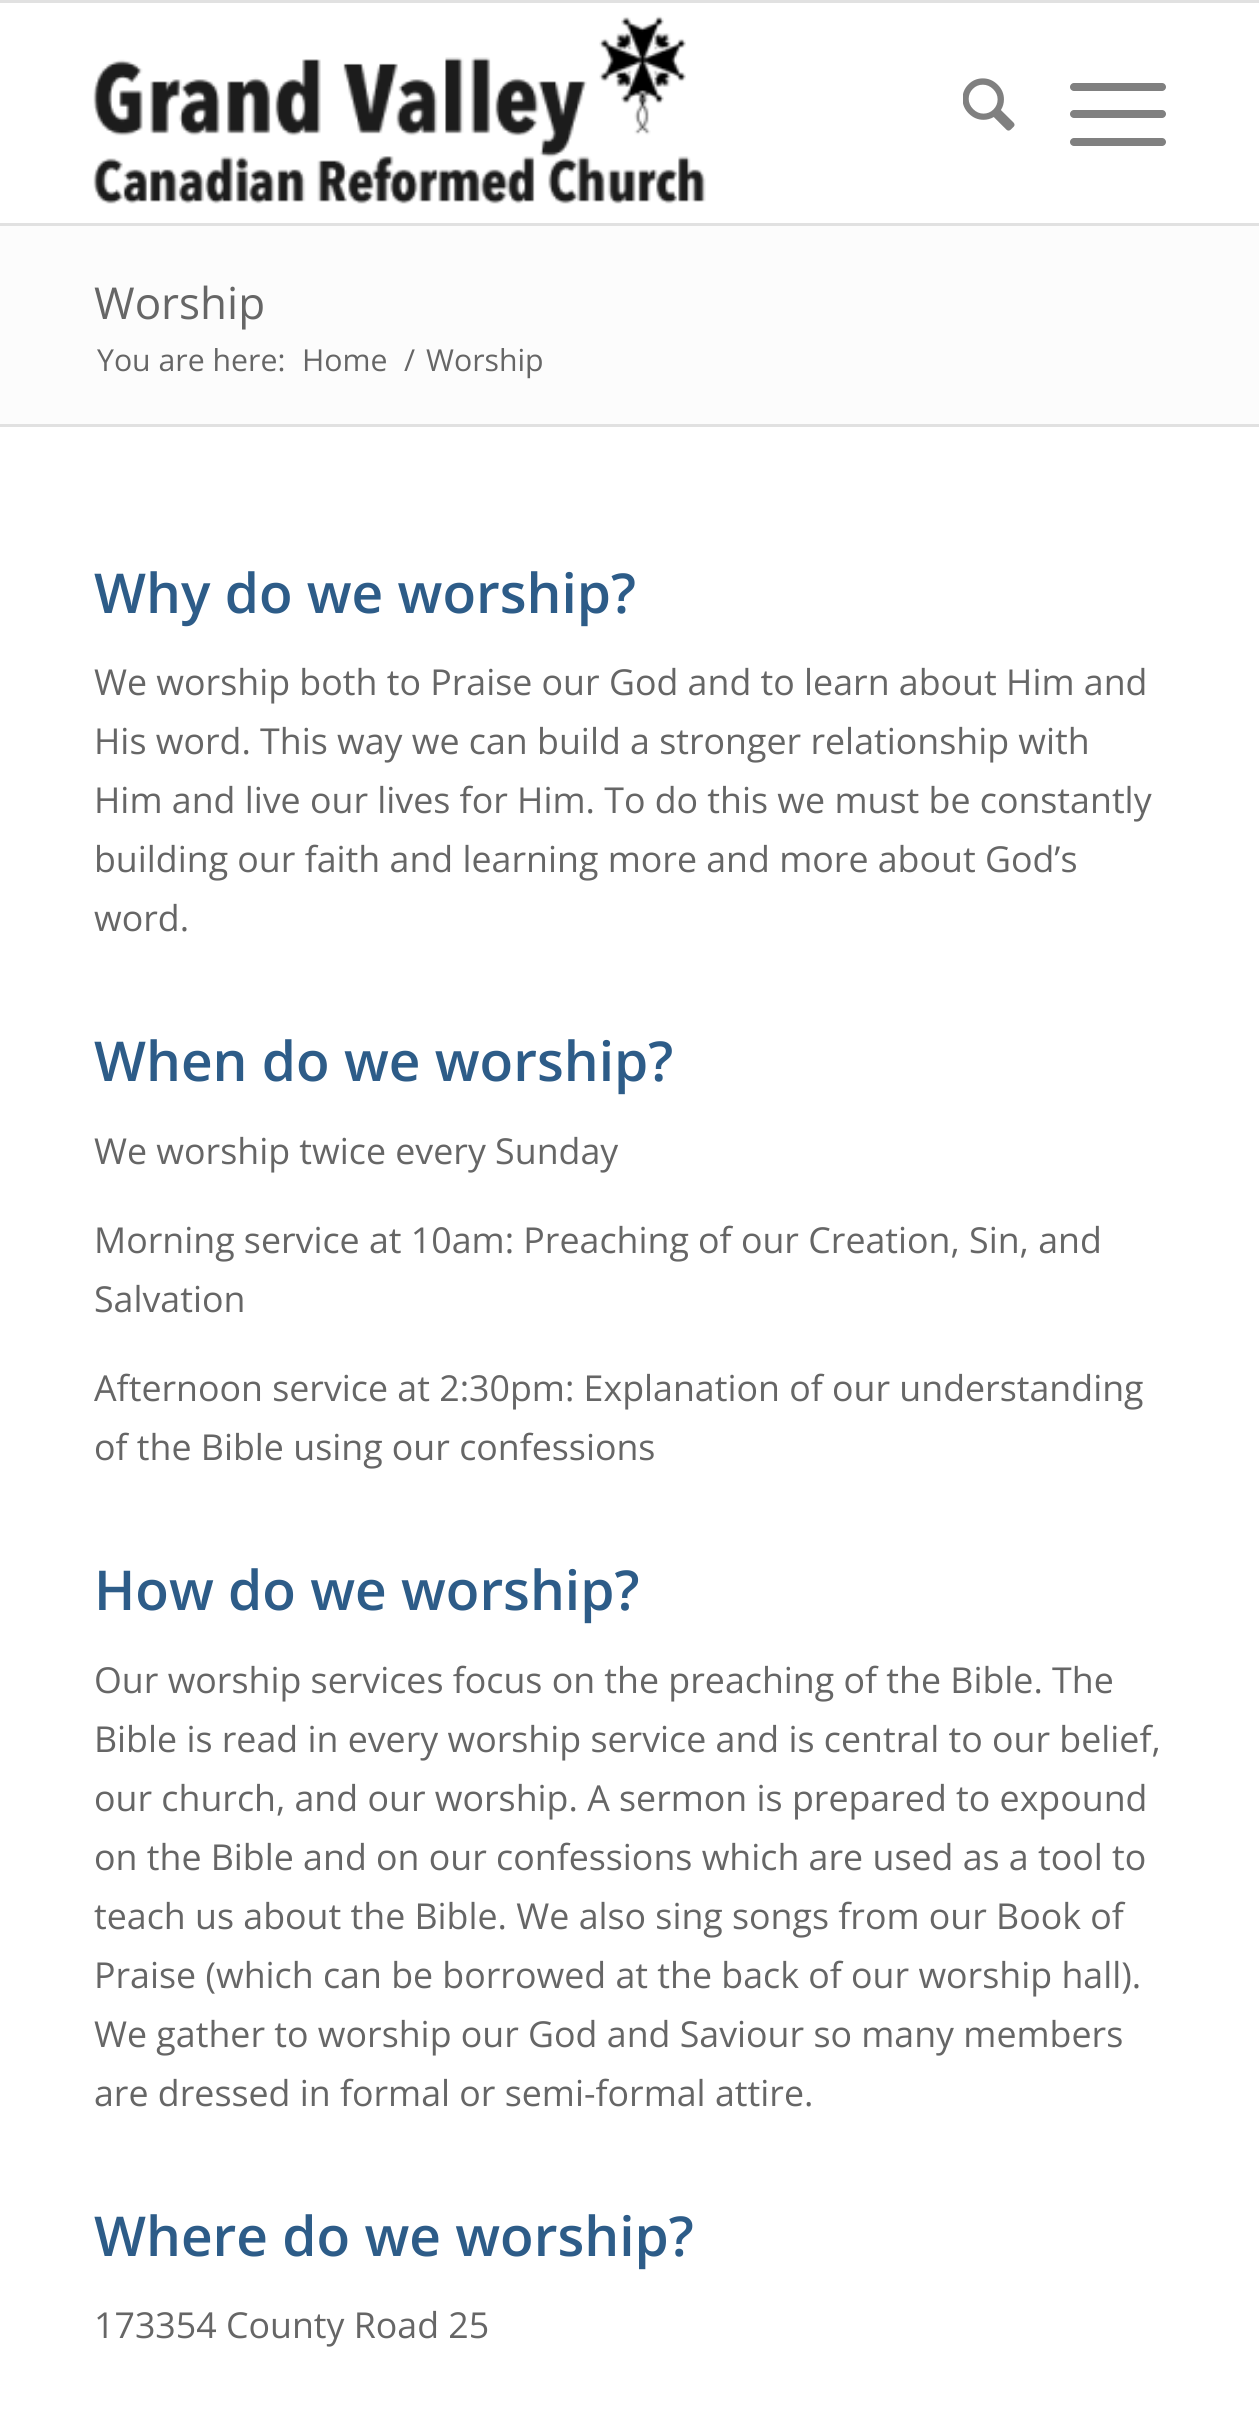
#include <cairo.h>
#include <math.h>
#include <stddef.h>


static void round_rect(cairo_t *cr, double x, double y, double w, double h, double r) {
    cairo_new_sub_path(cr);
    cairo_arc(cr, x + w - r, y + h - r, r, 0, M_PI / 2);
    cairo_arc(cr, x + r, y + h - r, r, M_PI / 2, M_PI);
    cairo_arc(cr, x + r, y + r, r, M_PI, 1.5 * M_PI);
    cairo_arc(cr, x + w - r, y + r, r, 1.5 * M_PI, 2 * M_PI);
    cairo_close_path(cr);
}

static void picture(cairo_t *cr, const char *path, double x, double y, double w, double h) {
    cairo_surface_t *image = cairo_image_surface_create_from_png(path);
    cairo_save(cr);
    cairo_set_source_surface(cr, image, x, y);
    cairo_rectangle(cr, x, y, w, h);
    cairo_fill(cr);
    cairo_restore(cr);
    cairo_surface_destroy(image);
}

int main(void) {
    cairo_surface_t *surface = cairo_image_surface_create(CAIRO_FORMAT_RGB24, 1259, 2432);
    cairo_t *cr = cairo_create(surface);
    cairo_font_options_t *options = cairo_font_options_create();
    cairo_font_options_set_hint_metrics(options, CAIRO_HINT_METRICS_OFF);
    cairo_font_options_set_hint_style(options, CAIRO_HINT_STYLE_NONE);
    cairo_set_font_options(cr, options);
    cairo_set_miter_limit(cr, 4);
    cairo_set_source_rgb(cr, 1, 1, 1);
    cairo_paint(cr);
    cairo_set_source_rgb(cr, 0.882, 0.882, 0.882);
    cairo_rectangle(cr, 0, 0, 1259, 3);
    cairo_fill(cr);
    cairo_rectangle(cr, 0, 223, 1259, 3);
    cairo_fill(cr);
    picture(cr, "img1.png", 93, 15, 613, 189);
    picture(cr, "img2.png", 963, 78, 52, 53);
    cairo_set_source_rgb(cr, 0.502, 0.502, 0.502);
    round_rect(cr, 1070, 110, 96, 8, 4);
    cairo_fill(cr);
    round_rect(cr, 1070, 83, 96, 8, 4);
    cairo_fill(cr);
    round_rect(cr, 1070, 138, 96, 8, 4);
    cairo_fill(cr);
    cairo_set_source_rgb(cr, 0.988, 0.988, 0.988);
    cairo_rectangle(cr, 0, 226, 1259, 198);
    cairo_fill(cr);
    cairo_select_font_face(cr, "Open Sans", CAIRO_FONT_SLANT_NORMAL, CAIRO_FONT_WEIGHT_NORMAL);
    cairo_set_font_size(cr, 44);
    cairo_set_source_rgb(cr, 0.4, 0.4, 0.4);
    cairo_move_to(cr, 94, 319);
    cairo_show_text(cr, "Worship");
    cairo_set_font_size(cr, 30.25);
    cairo_move_to(cr, 97, 371);
    cairo_show_text(cr, "You are here:");
    cairo_move_to(cr, 302, 371);
    cairo_show_text(cr, "Home");
    cairo_move_to(cr, 404, 371);
    cairo_show_text(cr, "/");
    cairo_move_to(cr, 426, 371);
    cairo_show_text(cr, "Worship");
    cairo_set_source_rgb(cr, 0.882, 0.882, 0.882);
    cairo_rectangle(cr, 0, 424, 1259, 3);
    cairo_fill(cr);
    cairo_select_font_face(cr, "Open Sans SemiBold", CAIRO_FONT_SLANT_NORMAL, CAIRO_FONT_WEIGHT_NORMAL);
    cairo_set_font_size(cr, 55);
    cairo_set_source_rgb(cr, 0.176, 0.361, 0.533);
    cairo_move_to(cr, 94, 613);
    cairo_show_text(cr, "Why do we worship?");
    cairo_select_font_face(cr, "Open Sans", CAIRO_FONT_SLANT_NORMAL, CAIRO_FONT_WEIGHT_NORMAL);
    cairo_set_font_size(cr, 35.75);
    cairo_set_source_rgb(cr, 0.4, 0.4, 0.4);
    cairo_move_to(cr, 94, 695);
    cairo_show_text(cr, "We worship both to Praise our God and to learn about Him and");
    cairo_move_to(cr, 94, 754);
    cairo_show_text(cr, "His word. This way we can build a stronger relationship with");
    cairo_move_to(cr, 94, 813);
    cairo_show_text(cr, "Him and live our lives for Him. To do this we must be constantly");
    cairo_move_to(cr, 94, 872);
    cairo_show_text(cr, "building our faith and learning more and more about God’s");
    cairo_move_to(cr, 94, 931);
    cairo_show_text(cr, "word.");
    cairo_select_font_face(cr, "Open Sans SemiBold", CAIRO_FONT_SLANT_NORMAL, CAIRO_FONT_WEIGHT_NORMAL);
    cairo_set_font_size(cr, 55);
    cairo_set_source_rgb(cr, 0.176, 0.361, 0.533);
    cairo_move_to(cr, 94, 1081);
    cairo_show_text(cr, "When do we worship?");
    cairo_select_font_face(cr, "Open Sans", CAIRO_FONT_SLANT_NORMAL, CAIRO_FONT_WEIGHT_NORMAL);
    cairo_set_font_size(cr, 35.75);
    cairo_set_source_rgb(cr, 0.4, 0.4, 0.4);
    cairo_move_to(cr, 94, 1164);
    cairo_show_text(cr, "We worship twice every Sunday");
    cairo_move_to(cr, 94, 1253);
    cairo_show_text(cr, "Morning service at 10am: Preaching of our Creation, Sin, and");
    cairo_move_to(cr, 94, 1312);
    cairo_show_text(cr, "Salvation");
    cairo_move_to(cr, 94, 1401);
    cairo_show_text(cr, "Afternoon service at 2:30pm: Explanation of our understanding");
    cairo_move_to(cr, 94, 1460);
    cairo_show_text(cr, "of the Bible using our confessions");
    cairo_select_font_face(cr, "Open Sans SemiBold", CAIRO_FONT_SLANT_NORMAL, CAIRO_FONT_WEIGHT_NORMAL);
    cairo_set_font_size(cr, 55);
    cairo_set_source_rgb(cr, 0.176, 0.361, 0.533);
    cairo_move_to(cr, 94, 1610);
    cairo_show_text(cr, "How do we worship?");
    cairo_select_font_face(cr, "Open Sans", CAIRO_FONT_SLANT_NORMAL, CAIRO_FONT_WEIGHT_NORMAL);
    cairo_set_font_size(cr, 35.75);
    cairo_set_source_rgb(cr, 0.4, 0.4, 0.4);
    cairo_move_to(cr, 94, 1693);
    cairo_show_text(cr, "Our worship services focus on the preaching of the Bible. The");
    cairo_move_to(cr, 94, 1752);
    cairo_show_text(cr, "Bible is read in every worship service and is central to our belief,");
    cairo_move_to(cr, 94, 1811);
    cairo_show_text(cr, "our church, and our worship. A sermon is prepared to expound");
    cairo_move_to(cr, 94, 1870);
    cairo_show_text(cr, "on the Bible and on our confessions which are used as a tool to");
    cairo_move_to(cr, 94, 1929);
    cairo_show_text(cr, "teach us about the Bible. We also sing songs from our Book of");
    cairo_move_to(cr, 94, 1988);
    cairo_show_text(cr, "Praise (which can be borrowed at the back of our worship hall).");
    cairo_move_to(cr, 94, 2047);
    cairo_show_text(cr, "We gather to worship our God and Saviour so many members");
    cairo_move_to(cr, 94, 2106);
    cairo_show_text(cr, "are dressed in formal or semi-formal attire.");
    cairo_select_font_face(cr, "Open Sans SemiBold", CAIRO_FONT_SLANT_NORMAL, CAIRO_FONT_WEIGHT_NORMAL);
    cairo_set_font_size(cr, 55);
    cairo_set_source_rgb(cr, 0.176, 0.361, 0.533);
    cairo_move_to(cr, 94, 2256);
    cairo_show_text(cr, "Where do we worship?");
    cairo_select_font_face(cr, "Open Sans", CAIRO_FONT_SLANT_NORMAL, CAIRO_FONT_WEIGHT_NORMAL);
    cairo_set_font_size(cr, 35.75);
    cairo_set_source_rgb(cr, 0.4, 0.4, 0.4);
    cairo_move_to(cr, 94, 2338);
    cairo_show_text(cr, "173354 County Road 25");
    cairo_surface_write_to_png(surface, "page.png");
    cairo_font_options_destroy(options);
    cairo_destroy(cr);
    cairo_surface_destroy(surface);
    return 0;
}
